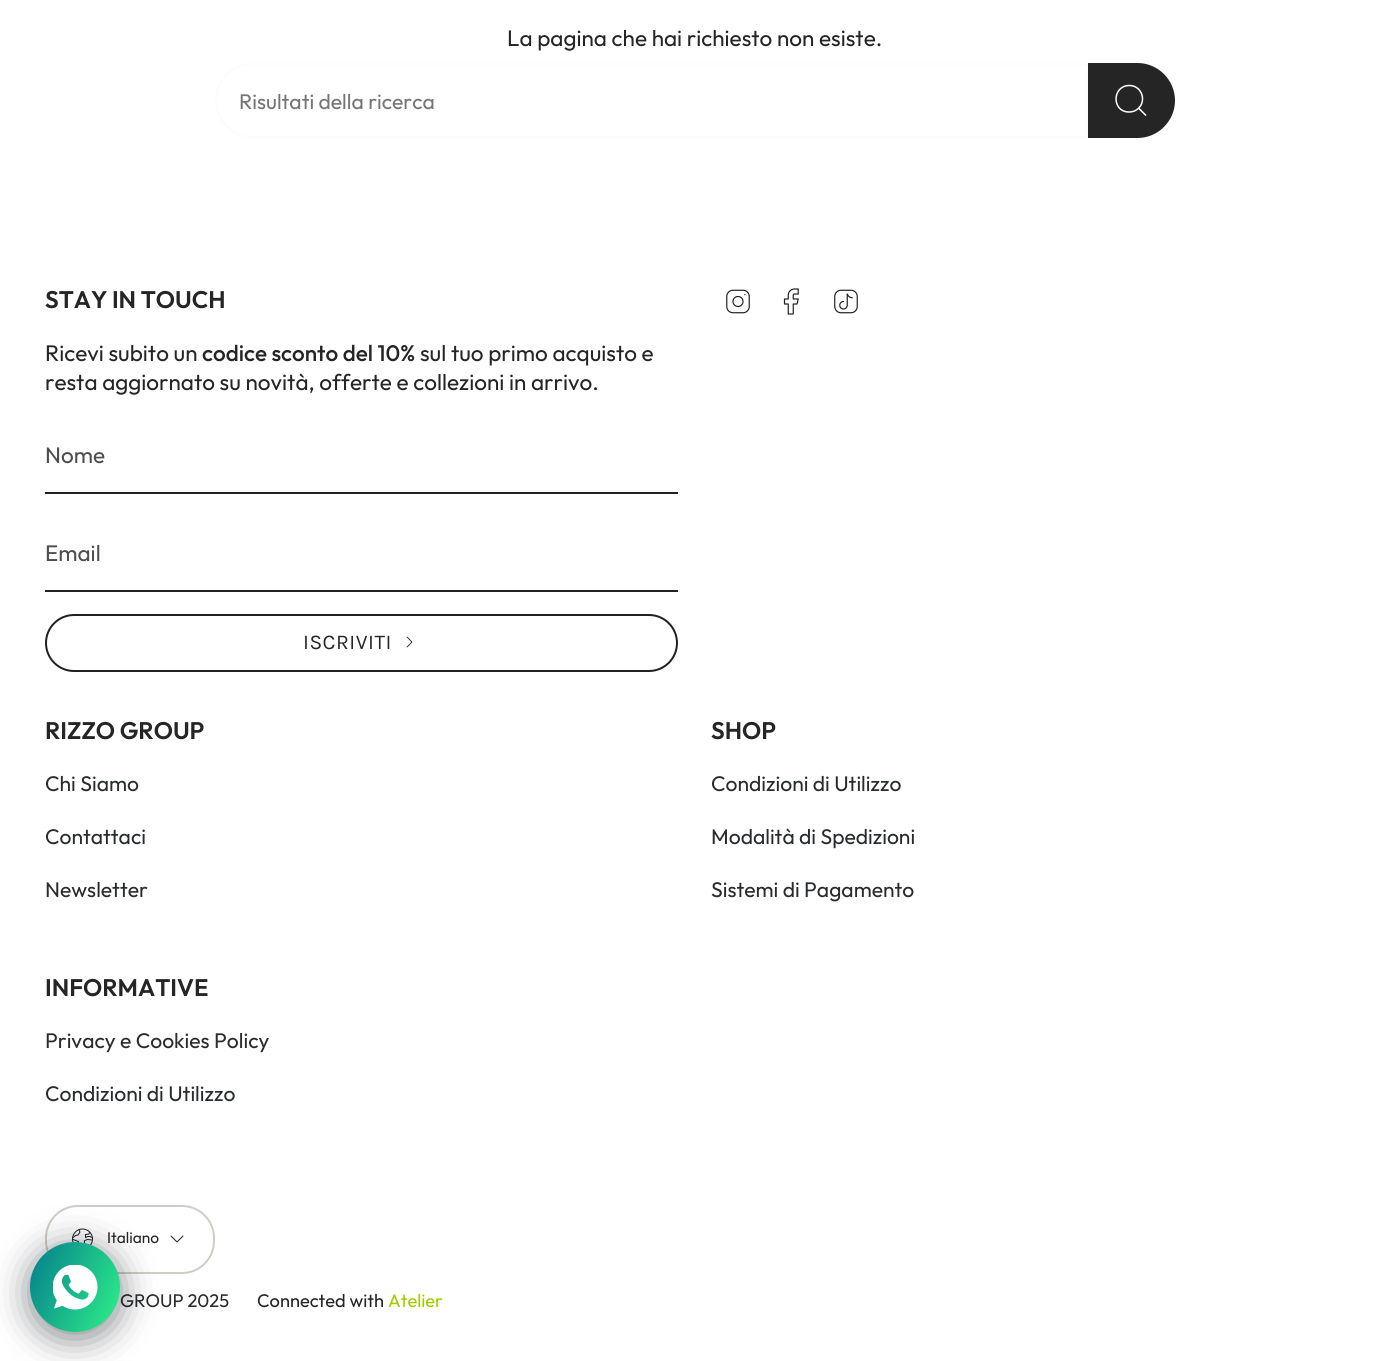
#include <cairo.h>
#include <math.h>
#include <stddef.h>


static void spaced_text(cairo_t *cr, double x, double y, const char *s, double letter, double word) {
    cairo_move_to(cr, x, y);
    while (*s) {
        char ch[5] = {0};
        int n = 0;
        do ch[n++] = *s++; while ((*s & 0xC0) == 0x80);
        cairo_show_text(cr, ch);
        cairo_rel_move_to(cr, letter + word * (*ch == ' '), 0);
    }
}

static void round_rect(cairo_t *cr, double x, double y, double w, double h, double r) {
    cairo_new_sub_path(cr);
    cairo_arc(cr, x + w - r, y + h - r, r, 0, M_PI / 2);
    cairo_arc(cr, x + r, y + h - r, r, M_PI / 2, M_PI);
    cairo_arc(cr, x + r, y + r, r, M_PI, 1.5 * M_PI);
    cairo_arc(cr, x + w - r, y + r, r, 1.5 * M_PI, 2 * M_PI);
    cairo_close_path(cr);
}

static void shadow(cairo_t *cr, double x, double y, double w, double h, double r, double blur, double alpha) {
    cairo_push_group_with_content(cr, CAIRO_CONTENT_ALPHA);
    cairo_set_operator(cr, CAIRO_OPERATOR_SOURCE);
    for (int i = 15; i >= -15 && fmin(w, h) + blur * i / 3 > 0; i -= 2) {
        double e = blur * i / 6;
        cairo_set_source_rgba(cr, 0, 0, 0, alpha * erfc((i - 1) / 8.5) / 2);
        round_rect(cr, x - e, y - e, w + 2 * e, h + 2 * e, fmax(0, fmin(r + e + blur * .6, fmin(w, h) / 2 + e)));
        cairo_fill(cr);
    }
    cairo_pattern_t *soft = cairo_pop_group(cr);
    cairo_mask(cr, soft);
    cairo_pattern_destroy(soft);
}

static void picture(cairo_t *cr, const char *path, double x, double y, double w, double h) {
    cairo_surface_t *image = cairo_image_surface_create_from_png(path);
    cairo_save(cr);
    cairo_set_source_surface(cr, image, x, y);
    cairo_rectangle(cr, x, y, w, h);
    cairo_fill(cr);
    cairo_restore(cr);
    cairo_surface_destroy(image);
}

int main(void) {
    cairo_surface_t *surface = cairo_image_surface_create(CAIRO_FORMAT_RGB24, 1388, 1361);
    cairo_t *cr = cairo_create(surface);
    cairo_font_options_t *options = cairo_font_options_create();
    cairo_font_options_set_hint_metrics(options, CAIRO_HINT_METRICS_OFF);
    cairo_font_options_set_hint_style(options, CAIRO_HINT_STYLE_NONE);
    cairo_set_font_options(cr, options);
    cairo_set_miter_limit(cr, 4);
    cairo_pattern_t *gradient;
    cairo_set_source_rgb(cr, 1, 1, 1);
    cairo_paint(cr);
    cairo_select_font_face(cr, "Outfit", CAIRO_FONT_SLANT_NORMAL, CAIRO_FONT_WEIGHT_NORMAL);
    cairo_set_font_size(cr, 22.5);
    cairo_set_source_rgb(cr, 0.145, 0.145, 0.145);
    cairo_move_to(cr, 507, 46);
    cairo_show_text(cr, "La pagina che hai richiesto non esiste.");
    cairo_new_path(cr);
    cairo_move_to(cr, 252.5, 64);
    cairo_line_to(cr, 1087, 64);
    cairo_line_to(cr, 1087, 137);
    cairo_line_to(cr, 252.5, 137);
    cairo_curve_to(cr, 232.5, 137, 216, 120.5, 216, 100.5);
    cairo_curve_to(cr, 216, 80.5, 232.5, 64, 252.5, 64);
    cairo_close_path(cr);
    cairo_set_source_rgb(cr, 0.988, 0.988, 0.988);
    cairo_stroke(cr);
    cairo_set_font_size(cr, 21.1);
    cairo_set_source_rgb(cr, 0.459, 0.459, 0.459);
    cairo_move_to(cr, 239, 109);
    cairo_show_text(cr, "Risultati della ricerca");
    cairo_set_source_rgb(cr, 0.145, 0.145, 0.145);
    cairo_new_path(cr);
    cairo_move_to(cr, 1089, 64);
    cairo_line_to(cr, 1137.5, 64);
    cairo_curve_to(cr, 1157.5, 64, 1174, 80.5, 1174, 100.5);
    cairo_curve_to(cr, 1174, 120.5, 1157.5, 137, 1137.5, 137);
    cairo_line_to(cr, 1089, 137);
    cairo_close_path(cr);
    cairo_fill_preserve(cr);
    cairo_stroke(cr);
    cairo_new_path(cr);
    cairo_move_to(cr, 1129.5, 85.5);
    cairo_curve_to(cr, 1142, 85.5, 1147.5, 102, 1137, 109.5);
    cairo_curve_to(cr, 1134.5, 111.5, 1131.5, 112, 1128.5, 112);
    cairo_curve_to(cr, 1111.5, 111.5, 1112, 85.5, 1129.5, 85.5);
    cairo_close_path(cr);
    cairo_move_to(cr, 1138.5, 108);
    cairo_line_to(cr, 1146, 115.5);
    cairo_set_source_rgb(cr, 1, 1, 1);
    cairo_set_line_width(cr, 1.5);
    cairo_stroke(cr);
    cairo_select_font_face(cr, "Outfit SemiBold", CAIRO_FONT_SLANT_NORMAL, CAIRO_FONT_WEIGHT_NORMAL);
    cairo_set_font_size(cr, 24);
    cairo_set_source_rgb(cr, 0.145, 0.145, 0.145);
    cairo_move_to(cr, 45, 308);
    cairo_show_text(cr, "STAY IN TOUCH");
    cairo_select_font_face(cr, "Outfit", CAIRO_FONT_SLANT_NORMAL, CAIRO_FONT_WEIGHT_NORMAL);
    cairo_set_font_size(cr, 22.5);
    cairo_move_to(cr, 45, 361);
    cairo_show_text(cr, "Ricevi subito un");
    cairo_select_font_face(cr, "Outfit Medium", CAIRO_FONT_SLANT_NORMAL, CAIRO_FONT_WEIGHT_NORMAL);
    cairo_move_to(cr, 202, 361);
    cairo_show_text(cr, "codice sconto del 10%");
    cairo_select_font_face(cr, "Outfit", CAIRO_FONT_SLANT_NORMAL, CAIRO_FONT_WEIGHT_NORMAL);
    cairo_move_to(cr, 420, 361);
    cairo_show_text(cr, "sul tuo primo acquisto e");
    cairo_move_to(cr, 45, 390);
    cairo_show_text(cr, "resta aggiornato su novità, offerte e collezioni in arrivo.");
    cairo_set_source_rgb(cr, 0.129, 0.129, 0.129);
    cairo_rectangle(cr, 45, 492, 633, 2);
    cairo_fill(cr);
    cairo_set_source_rgb(cr, 0.302, 0.302, 0.302);
    cairo_move_to(cr, 45, 463);
    cairo_show_text(cr, "Nome");
    cairo_set_source_rgb(cr, 0.129, 0.129, 0.129);
    cairo_rectangle(cr, 45, 590, 633, 2);
    cairo_fill(cr);
    cairo_set_source_rgb(cr, 0.302, 0.302, 0.302);
    cairo_move_to(cr, 45, 561);
    cairo_show_text(cr, "Email");
    round_rect(cr, 46, 615, 631, 56, 28);
    cairo_set_source_rgb(cr, 0.129, 0.129, 0.129);
    cairo_set_line_width(cr, 2);
    cairo_stroke(cr);
    cairo_select_font_face(cr, "Karla", CAIRO_FONT_SLANT_NORMAL, CAIRO_FONT_WEIGHT_NORMAL);
    cairo_set_font_size(cr, 21);
    cairo_set_source_rgb(cr, 0.145, 0.145, 0.145);
    spaced_text(cr, 303, 649, "ISCRIVITI", 0.5, 0);
    cairo_new_path(cr);
    cairo_move_to(cr, 407, 637);
    cairo_line_to(cr, 412, 642);
    cairo_line_to(cr, 407, 647);
    cairo_set_source_rgb(cr, 0.129, 0.129, 0.129);
    cairo_set_line_width(cr, 0.9);
    cairo_set_line_cap(cr, CAIRO_LINE_CAP_ROUND);
    cairo_set_line_join(cr, CAIRO_LINE_JOIN_ROUND);
    cairo_stroke(cr);
    picture(cr, "img1.png", 726, 289, 24, 25);
    picture(cr, "img2.png", 783, 288, 16, 27);
    picture(cr, "img3.png", 834, 289, 24, 25);
    cairo_select_font_face(cr, "Outfit SemiBold", CAIRO_FONT_SLANT_NORMAL, CAIRO_FONT_WEIGHT_NORMAL);
    cairo_set_font_size(cr, 24);
    cairo_set_source_rgb(cr, 0.145, 0.145, 0.145);
    cairo_move_to(cr, 45, 739);
    cairo_show_text(cr, "RIZZO GROUP");
    cairo_select_font_face(cr, "Outfit", CAIRO_FONT_SLANT_NORMAL, CAIRO_FONT_WEIGHT_NORMAL);
    cairo_set_font_size(cr, 21.1);
    cairo_set_source_rgb(cr, 0.157, 0.173, 0.18);
    cairo_move_to(cr, 45, 791);
    cairo_show_text(cr, "Chi Siamo");
    cairo_move_to(cr, 45, 844);
    cairo_show_text(cr, "Contattaci");
    cairo_move_to(cr, 45, 897);
    cairo_show_text(cr, "Newsletter");
    cairo_select_font_face(cr, "Outfit SemiBold", CAIRO_FONT_SLANT_NORMAL, CAIRO_FONT_WEIGHT_NORMAL);
    cairo_set_font_size(cr, 24);
    cairo_set_source_rgb(cr, 0.145, 0.145, 0.145);
    cairo_move_to(cr, 711, 739);
    cairo_show_text(cr, "SHOP");
    cairo_select_font_face(cr, "Outfit", CAIRO_FONT_SLANT_NORMAL, CAIRO_FONT_WEIGHT_NORMAL);
    cairo_set_font_size(cr, 21.1);
    cairo_set_source_rgb(cr, 0.157, 0.173, 0.18);
    cairo_move_to(cr, 711, 791);
    cairo_show_text(cr, "Condizioni di Utilizzo");
    cairo_move_to(cr, 711, 844);
    cairo_show_text(cr, "Modalità di Spedizioni");
    cairo_move_to(cr, 711, 897);
    cairo_show_text(cr, "Sistemi di Pagamento");
    cairo_select_font_face(cr, "Outfit SemiBold", CAIRO_FONT_SLANT_NORMAL, CAIRO_FONT_WEIGHT_NORMAL);
    cairo_set_font_size(cr, 24);
    cairo_set_source_rgb(cr, 0.145, 0.145, 0.145);
    cairo_move_to(cr, 45, 996);
    cairo_show_text(cr, "INFORMATIVE");
    cairo_select_font_face(cr, "Outfit", CAIRO_FONT_SLANT_NORMAL, CAIRO_FONT_WEIGHT_NORMAL);
    cairo_set_font_size(cr, 21.1);
    cairo_set_source_rgb(cr, 0.157, 0.173, 0.18);
    cairo_move_to(cr, 45, 1048);
    cairo_show_text(cr, "Privacy e Cookies Policy");
    cairo_move_to(cr, 45, 1101);
    cairo_show_text(cr, "Condizioni di Utilizzo");
    round_rect(cr, 46, 1206, 168, 67, 32);
    cairo_set_source_rgb(cr, 0.82, 0.804, 0.769);
    cairo_set_line_width(cr, 2);
    cairo_set_line_cap(cr, CAIRO_LINE_CAP_BUTT);
    cairo_set_line_join(cr, CAIRO_LINE_JOIN_MITER);
    cairo_stroke(cr);
    picture(cr, "img4.png", 72, 1228, 21, 17);
    cairo_set_font_size(cr, 15.5);
    cairo_set_source_rgb(cr, 0.145, 0.145, 0.145);
    cairo_move_to(cr, 107, 1243);
    cairo_show_text(cr, "Italiano");
    cairo_new_path(cr);
    cairo_move_to(cr, 171, 1236);
    cairo_line_to(cr, 177, 1242);
    cairo_line_to(cr, 183, 1236);
    cairo_set_source_rgb(cr, 0.129, 0.129, 0.129);
    cairo_set_line_width(cr, 1);
    cairo_set_line_cap(cr, CAIRO_LINE_CAP_ROUND);
    cairo_set_line_join(cr, CAIRO_LINE_JOIN_ROUND);
    cairo_stroke(cr);
    cairo_set_font_size(cr, 18.25);
    cairo_set_source_rgb(cr, 0.157, 0.173, 0.18);
    cairo_move_to(cr, 120, 1307);
    cairo_show_text(cr, "GROUP 2025");
    cairo_set_source_rgb(cr, 0.145, 0.145, 0.145);
    cairo_move_to(cr, 257, 1307);
    cairo_show_text(cr, "Connected with");
    cairo_set_source_rgb(cr, 0.631, 0.792, 0);
    cairo_move_to(cr, 388, 1307);
    cairo_show_text(cr, "Atelier");
    cairo_set_source_rgb(cr, 0.008, 0.024, 0.063);
    shadow(cr, 30, 1248, 90, 90, 45, 18, 0.5);
    gradient = cairo_pattern_create_linear(21, 1262, 129, 1312);
    cairo_pattern_add_color_stop_rgba(gradient, 0, 0.016, 0.486, 0.553, 1);
    cairo_pattern_add_color_stop_rgba(gradient, 1, 0.184, 0.949, 0.537, 1);
    cairo_set_source(cr, gradient);
    cairo_pattern_destroy(gradient);
    cairo_arc(cr, 75, 1287, 45, 0, 2 * M_PI);
    cairo_fill(cr);
    picture(cr, "img5.png", 53, 1265, 45, 45);
    cairo_surface_write_to_png(surface, "page.png");
    cairo_font_options_destroy(options);
    cairo_destroy(cr);
    cairo_surface_destroy(surface);
    return 0;
}
